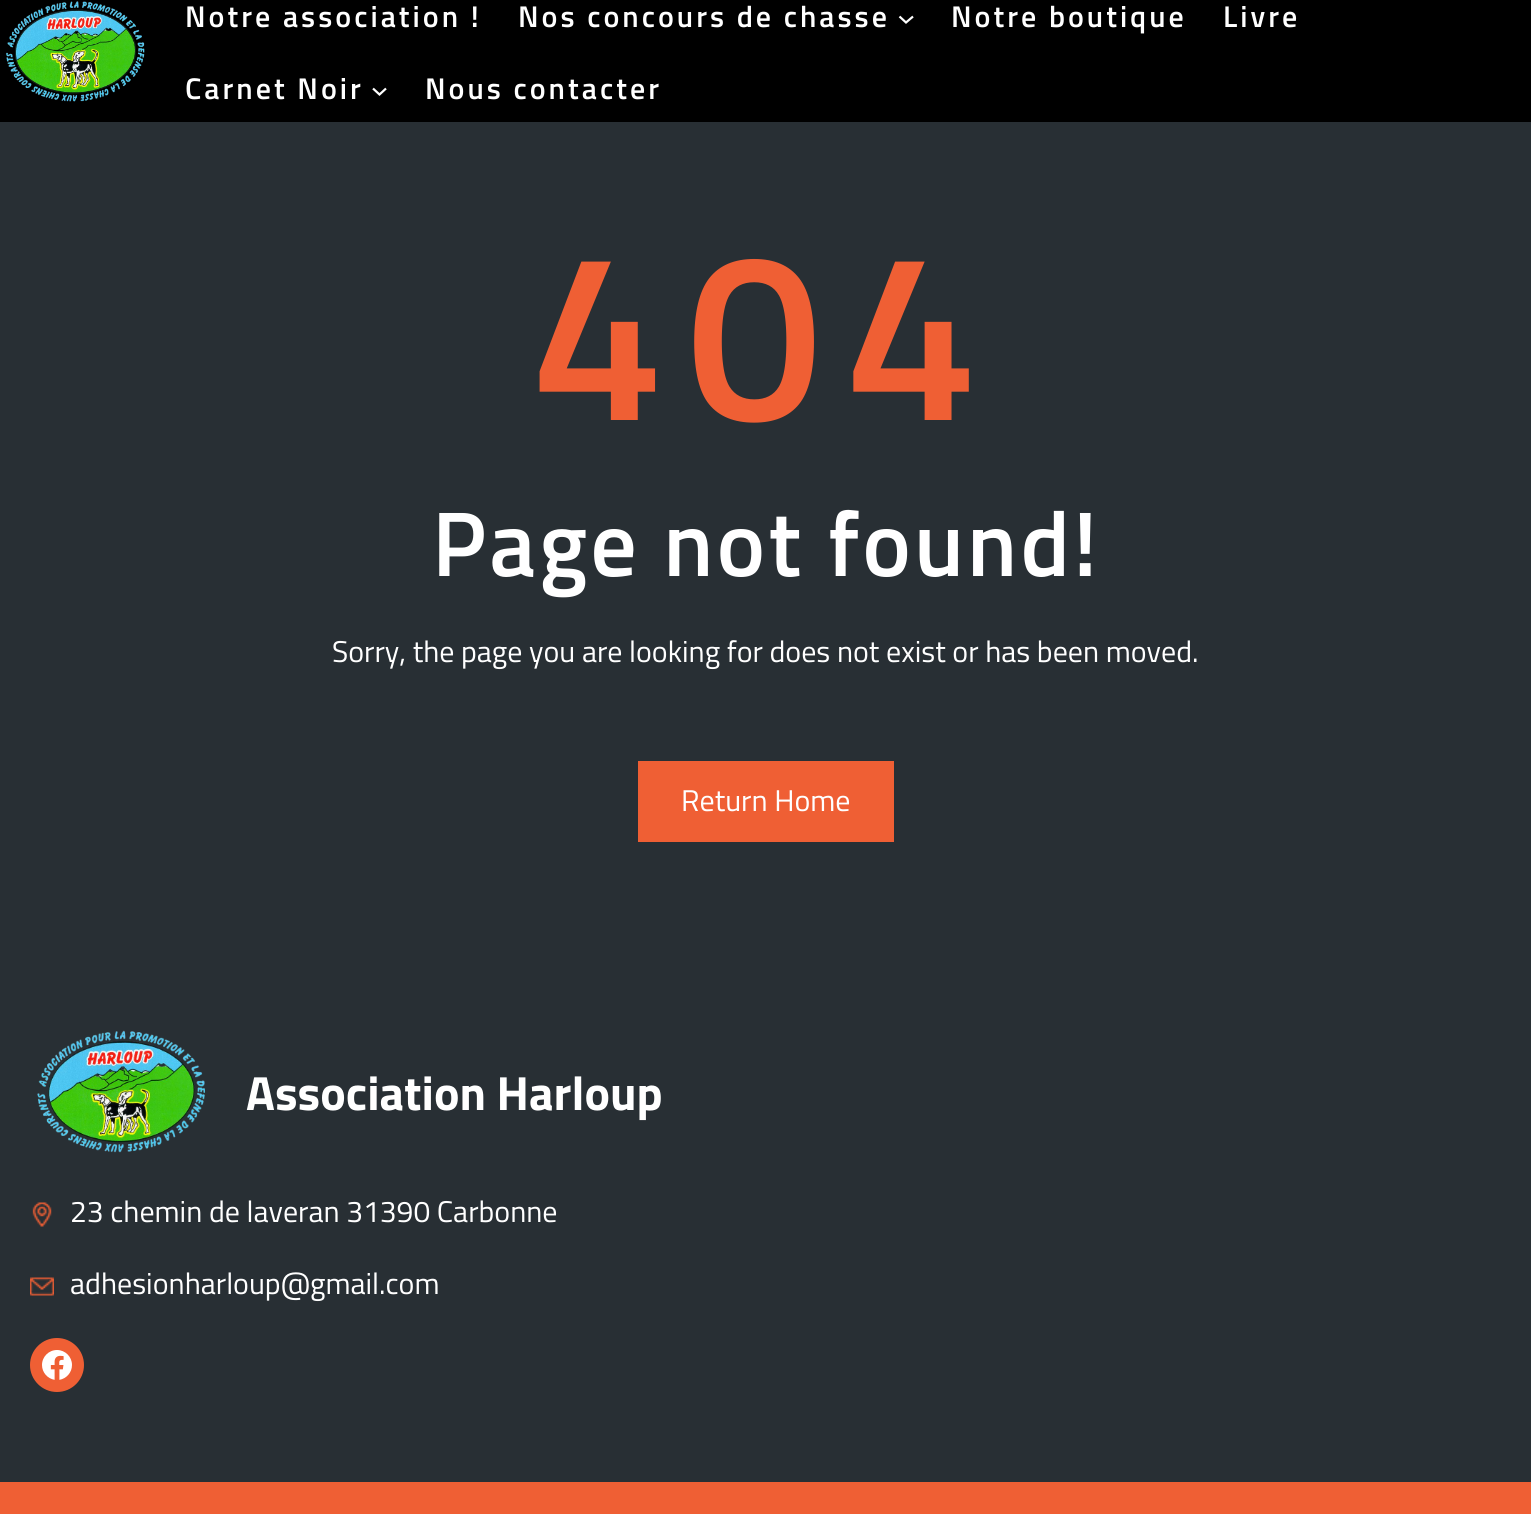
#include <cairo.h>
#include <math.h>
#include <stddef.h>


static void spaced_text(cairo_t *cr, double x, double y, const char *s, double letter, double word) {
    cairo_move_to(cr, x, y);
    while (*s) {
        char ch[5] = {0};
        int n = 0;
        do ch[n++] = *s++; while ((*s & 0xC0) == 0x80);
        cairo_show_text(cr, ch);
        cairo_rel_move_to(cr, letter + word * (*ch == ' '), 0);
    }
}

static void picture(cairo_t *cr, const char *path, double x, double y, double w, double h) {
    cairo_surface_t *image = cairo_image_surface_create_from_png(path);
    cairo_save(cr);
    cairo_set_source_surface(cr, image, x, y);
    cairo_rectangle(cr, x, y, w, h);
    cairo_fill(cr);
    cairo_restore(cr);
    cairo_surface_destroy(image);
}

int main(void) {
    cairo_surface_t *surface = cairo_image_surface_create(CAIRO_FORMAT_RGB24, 1531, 1514);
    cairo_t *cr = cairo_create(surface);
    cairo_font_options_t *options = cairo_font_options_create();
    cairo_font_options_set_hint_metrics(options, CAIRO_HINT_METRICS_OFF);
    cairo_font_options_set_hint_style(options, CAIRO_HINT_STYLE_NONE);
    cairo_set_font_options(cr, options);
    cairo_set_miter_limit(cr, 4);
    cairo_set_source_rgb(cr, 0.157, 0.184, 0.204);
    cairo_paint(cr);
    cairo_set_source_rgb(cr, 0, 0, 0);
    cairo_rectangle(cr, 0, 0, 1531, 122);
    cairo_fill(cr);
    picture(cr, "img1.png", 6, 1, 139, 101);
    cairo_select_font_face(cr, "Titillium Web SemiBold", CAIRO_FONT_SLANT_NORMAL, CAIRO_FONT_WEIGHT_NORMAL);
    cairo_set_font_size(cr, 30);
    cairo_set_source_rgb(cr, 1, 1, 1);
    spaced_text(cr, 185, 27, "Notre association !", 3, 0);
    spaced_text(cr, 518, 27, "Nos concours de chasse", 3, 0);
    cairo_new_path(cr);
    cairo_move_to(cr, 899.5, 16.5);
    cairo_line_to(cr, 906, 22.5);
    cairo_line_to(cr, 913, 16.5);
    cairo_set_line_width(cr, 2.2);
    cairo_stroke(cr);
    spaced_text(cr, 951, 27, "Notre boutique", 3, 0);
    spaced_text(cr, 1223, 27, "Livre", 3, 0);
    spaced_text(cr, 185, 99, "Carnet Noir", 3, 0);
    cairo_new_path(cr);
    cairo_move_to(cr, 373, 88.5);
    cairo_line_to(cr, 379.5, 94.5);
    cairo_line_to(cr, 386, 88.5);
    cairo_stroke(cr);
    spaced_text(cr, 425, 99, "Nous contacter", 3, 0);
    cairo_set_font_size(cr, 240);
    cairo_set_source_rgb(cr, 0.937, 0.373, 0.204);
    spaced_text(cr, 530, 420, "404", 22.5, 0);
    cairo_set_font_size(cr, 92);
    cairo_set_source_rgb(cr, 1, 1, 1);
    spaced_text(cr, 432, 576, "Page not found!", 3, 0);
    cairo_select_font_face(cr, "Titillium Web", CAIRO_FONT_SLANT_NORMAL, CAIRO_FONT_WEIGHT_NORMAL);
    cairo_set_font_size(cr, 30);
    cairo_move_to(cr, 332, 662);
    cairo_show_text(cr, "Sorry, the page you are looking for does not exist or has been moved.");
    cairo_set_source_rgb(cr, 0.937, 0.373, 0.204);
    cairo_rectangle(cr, 638, 761, 256, 81);
    cairo_fill(cr);
    cairo_set_source_rgb(cr, 1, 1, 1);
    cairo_move_to(cr, 681, 811);
    cairo_show_text(cr, "Return Home");
    picture(cr, "img2.png", 37, 1030, 168, 123);
    cairo_select_font_face(cr, "Titillium Web", CAIRO_FONT_SLANT_NORMAL, CAIRO_FONT_WEIGHT_BOLD);
    cairo_set_font_size(cr, 48);
    cairo_move_to(cr, 246, 1110);
    cairo_show_text(cr, "Association Harloup");
    picture(cr, "img3.png", 32, 1202, 20, 25);
    cairo_select_font_face(cr, "Titillium Web", CAIRO_FONT_SLANT_NORMAL, CAIRO_FONT_WEIGHT_NORMAL);
    cairo_set_font_size(cr, 30);
    cairo_move_to(cr, 70, 1222);
    cairo_show_text(cr, "23 chemin de laveran 31390 Carbonne");
    picture(cr, "img4.png", 30, 1277, 24, 19);
    cairo_move_to(cr, 70, 1294);
    cairo_show_text(cr, "adhesionharloup@gmail.com");
    cairo_set_source_rgb(cr, 0.937, 0.373, 0.204);
    cairo_new_path(cr);
    cairo_arc(cr, 57, 1365, 27, 0, 2 * M_PI);
    cairo_fill(cr);
    picture(cr, "img5.png", 42, 1350, 30, 30);
    cairo_rectangle(cr, 0, 1482, 1531, 32);
    cairo_fill(cr);
    cairo_surface_write_to_png(surface, "page.png");
    cairo_font_options_destroy(options);
    cairo_destroy(cr);
    cairo_surface_destroy(surface);
    return 0;
}
